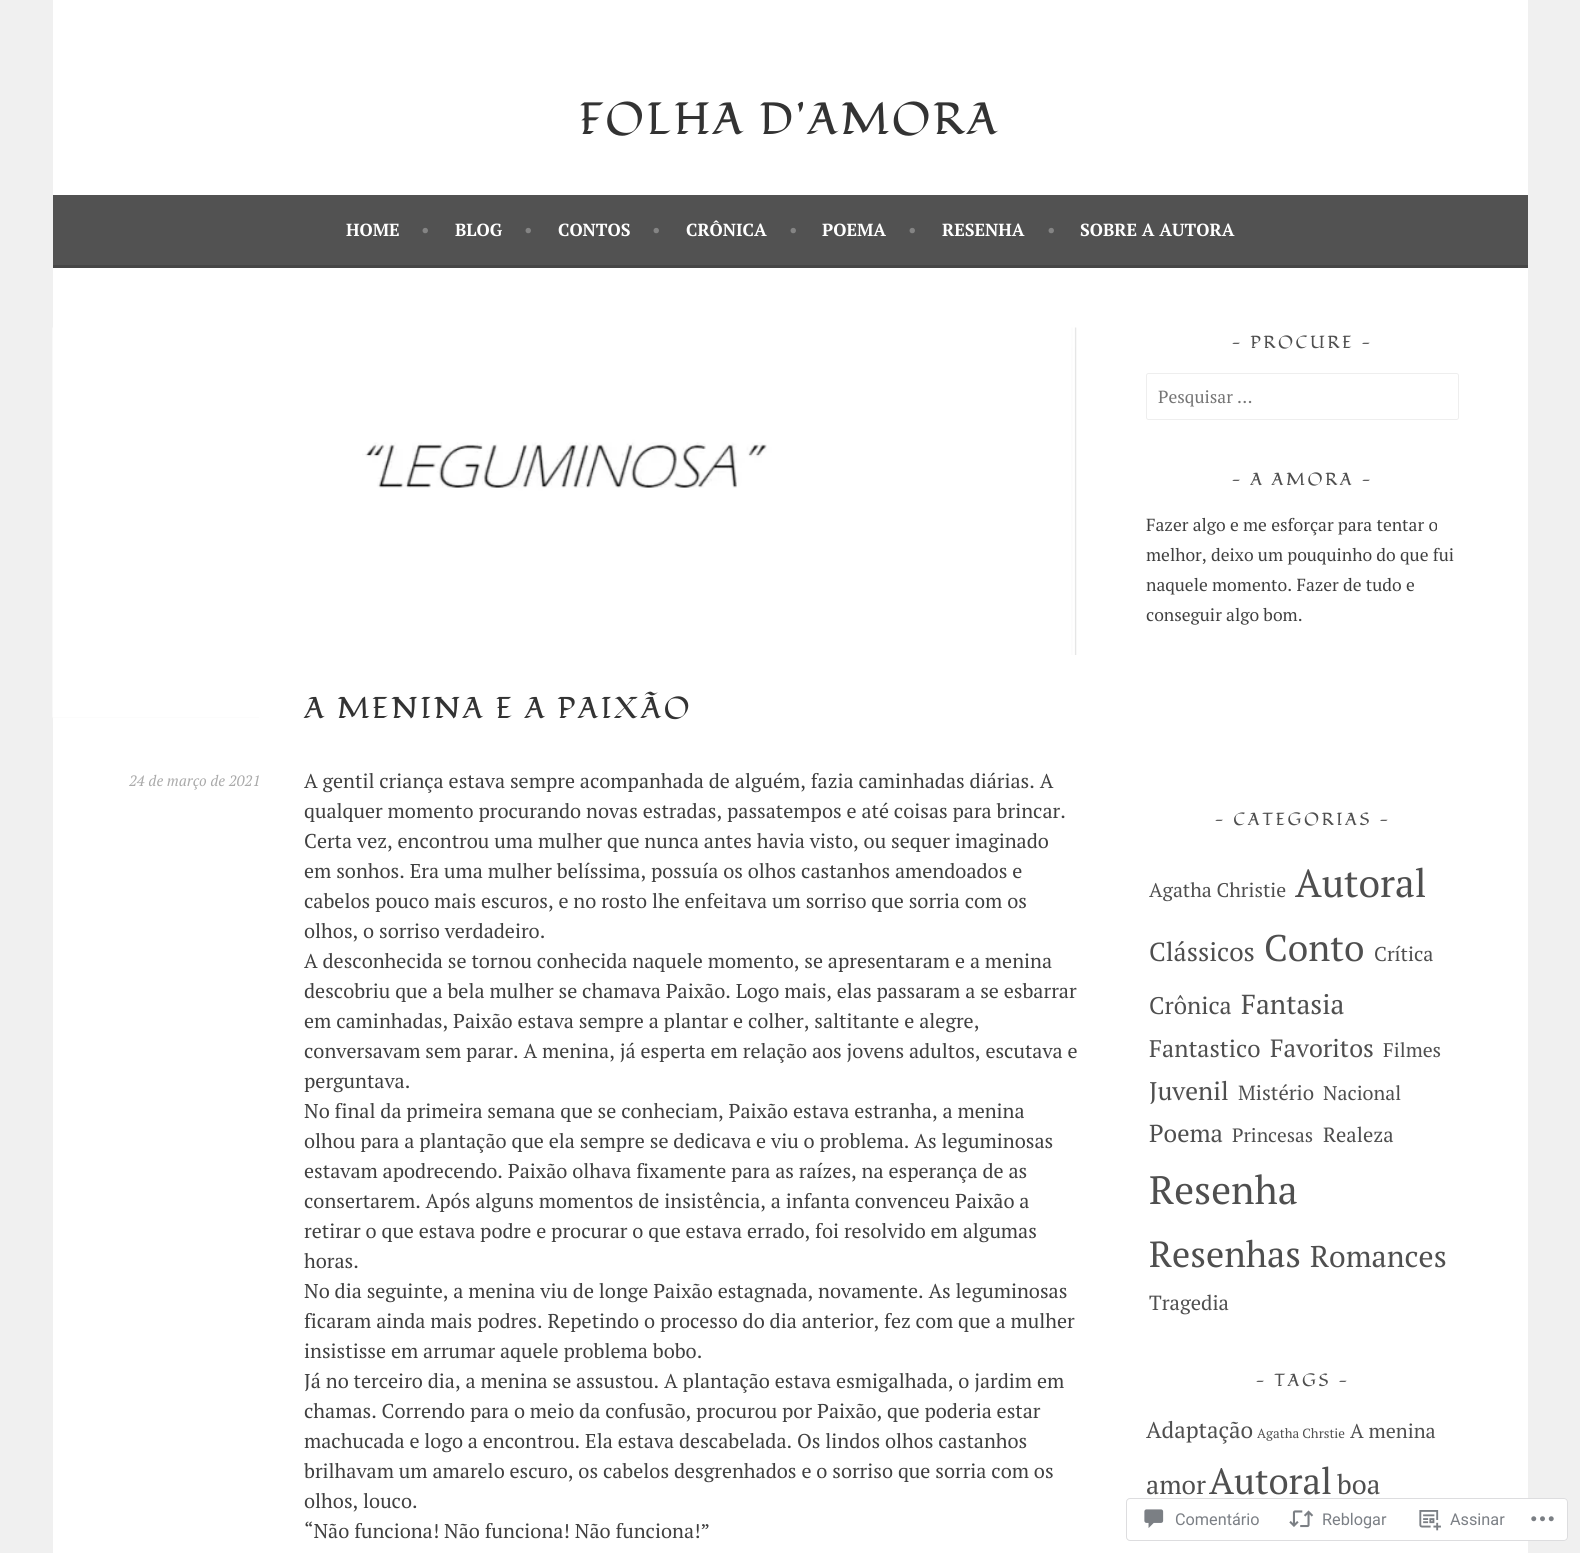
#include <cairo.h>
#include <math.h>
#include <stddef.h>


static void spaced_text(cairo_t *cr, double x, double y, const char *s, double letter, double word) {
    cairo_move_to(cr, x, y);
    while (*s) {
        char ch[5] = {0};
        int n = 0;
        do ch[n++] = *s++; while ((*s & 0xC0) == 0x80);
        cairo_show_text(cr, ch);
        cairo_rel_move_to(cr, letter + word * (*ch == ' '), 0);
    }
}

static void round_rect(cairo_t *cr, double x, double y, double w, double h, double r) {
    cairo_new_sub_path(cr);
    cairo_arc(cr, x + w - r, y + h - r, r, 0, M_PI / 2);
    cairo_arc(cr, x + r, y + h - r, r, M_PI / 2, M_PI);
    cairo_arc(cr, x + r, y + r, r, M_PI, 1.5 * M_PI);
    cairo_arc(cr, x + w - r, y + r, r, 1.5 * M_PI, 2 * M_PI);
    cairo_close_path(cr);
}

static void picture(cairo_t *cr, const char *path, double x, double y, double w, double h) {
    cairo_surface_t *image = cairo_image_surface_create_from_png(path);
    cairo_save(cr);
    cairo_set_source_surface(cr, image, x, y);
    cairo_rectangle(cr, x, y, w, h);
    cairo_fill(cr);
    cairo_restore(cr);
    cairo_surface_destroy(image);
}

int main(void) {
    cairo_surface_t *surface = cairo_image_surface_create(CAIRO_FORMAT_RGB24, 1580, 1553);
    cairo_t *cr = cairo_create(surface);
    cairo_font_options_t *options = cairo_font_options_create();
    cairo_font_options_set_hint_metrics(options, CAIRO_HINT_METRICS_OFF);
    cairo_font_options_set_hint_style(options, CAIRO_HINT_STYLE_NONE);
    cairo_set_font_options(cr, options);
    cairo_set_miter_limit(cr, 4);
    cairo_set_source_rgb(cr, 0.941, 0.941, 0.941);
    cairo_paint(cr);
    cairo_set_source_rgb(cr, 1, 1, 1);
    cairo_rectangle(cr, 53, 0, 1475, 195);
    cairo_fill(cr);
    cairo_select_font_face(cr, "Fondamento", CAIRO_FONT_SLANT_NORMAL, CAIRO_FONT_WEIGHT_NORMAL);
    cairo_set_font_size(cr, 45);
    cairo_set_source_rgb(cr, 0.2, 0.2, 0.2);
    spaced_text(cr, 579, 134, "FOLHA D'AMORA", 2.5, 0);
    cairo_set_source_rgb(cr, 0.322, 0.322, 0.322);
    cairo_rectangle(cr, 53, 195, 1475, 70);
    cairo_fill(cr);
    cairo_set_source_rgb(cr, 0.275, 0.275, 0.275);
    cairo_rectangle(cr, 53, 265, 1475, 3);
    cairo_fill(cr);
    cairo_select_font_face(cr, "PT Serif", CAIRO_FONT_SLANT_NORMAL, CAIRO_FONT_WEIGHT_BOLD);
    cairo_set_font_size(cr, 17.5);
    cairo_set_source_rgb(cr, 1, 1, 1);
    cairo_move_to(cr, 346, 236);
    cairo_show_text(cr, "HOME");
    cairo_set_source_rgb(cr, 0.518, 0.518, 0.518);
    cairo_move_to(cr, 421, 236);
    cairo_show_text(cr, "•");
    cairo_set_source_rgb(cr, 1, 1, 1);
    cairo_move_to(cr, 455, 236);
    cairo_show_text(cr, "BLOG");
    cairo_set_source_rgb(cr, 0.518, 0.518, 0.518);
    cairo_move_to(cr, 524, 236);
    cairo_show_text(cr, "•");
    cairo_set_source_rgb(cr, 1, 1, 1);
    cairo_move_to(cr, 558, 236);
    cairo_show_text(cr, "CONTOS");
    cairo_set_source_rgb(cr, 0.518, 0.518, 0.518);
    cairo_move_to(cr, 652, 236);
    cairo_show_text(cr, "•");
    cairo_set_source_rgb(cr, 1, 1, 1);
    cairo_move_to(cr, 686, 236);
    cairo_show_text(cr, "CRÔNICA");
    cairo_set_source_rgb(cr, 0.518, 0.518, 0.518);
    cairo_move_to(cr, 789, 236);
    cairo_show_text(cr, "•");
    cairo_set_source_rgb(cr, 1, 1, 1);
    cairo_move_to(cr, 822, 236);
    cairo_show_text(cr, "POEMA");
    cairo_set_source_rgb(cr, 0.518, 0.518, 0.518);
    cairo_move_to(cr, 908, 236);
    cairo_show_text(cr, "•");
    cairo_set_source_rgb(cr, 1, 1, 1);
    cairo_move_to(cr, 942, 236);
    cairo_show_text(cr, "RESENHA");
    cairo_set_source_rgb(cr, 0.518, 0.518, 0.518);
    cairo_move_to(cr, 1047, 236);
    cairo_show_text(cr, "•");
    cairo_set_source_rgb(cr, 1, 1, 1);
    cairo_move_to(cr, 1080, 236);
    cairo_show_text(cr, "SOBRE A AUTORA");
    cairo_rectangle(cr, 53, 268, 1475, 1285);
    cairo_fill(cr);
    cairo_set_source_rgb(cr, 0.973, 0.976, 0.973);
    cairo_rectangle(cr, 53, 717, 206, 1);
    cairo_fill(cr);
    picture(cr, "img1.png", 52, 327, 1025, 391);
    cairo_set_source_rgb(cr, 1, 1, 1);
    cairo_rectangle(cr, 1071, 655, 6, 63);
    cairo_fill(cr);
    cairo_select_font_face(cr, "Fondamento", CAIRO_FONT_SLANT_NORMAL, CAIRO_FONT_WEIGHT_NORMAL);
    cairo_set_font_size(cr, 30);
    cairo_set_source_rgb(cr, 0.2, 0.2, 0.2);
    spaced_text(cr, 304, 718, "A MENINA E A PAIXÃO", 2.5, 0);
    cairo_select_font_face(cr, "PT Serif", CAIRO_FONT_SLANT_ITALIC, CAIRO_FONT_WEIGHT_NORMAL);
    cairo_set_font_size(cr, 15);
    cairo_set_source_rgb(cr, 0.667, 0.667, 0.667);
    cairo_move_to(cr, 129, 786);
    cairo_show_text(cr, "24 de março de 2021");
    cairo_select_font_face(cr, "PT Serif", CAIRO_FONT_SLANT_NORMAL, CAIRO_FONT_WEIGHT_NORMAL);
    cairo_set_font_size(cr, 20);
    cairo_set_source_rgb(cr, 0.251, 0.251, 0.251);
    cairo_move_to(cr, 304, 788);
    cairo_show_text(cr, "A gentil criança estava sempre acompanhada de alguém, fazia caminhadas diárias. A");
    cairo_move_to(cr, 304, 818);
    cairo_show_text(cr, "qualquer momento procurando novas estradas, passatempos e até coisas para brincar.");
    cairo_move_to(cr, 304, 848);
    cairo_show_text(cr, "Certa vez, encontrou uma mulher que nunca antes havia visto, ou sequer imaginado");
    cairo_move_to(cr, 304, 878);
    cairo_show_text(cr, "em sonhos. Era uma mulher belíssima, possuía os olhos castanhos amendoados e");
    cairo_move_to(cr, 304, 908);
    cairo_show_text(cr, "cabelos pouco mais escuros, e no rosto lhe enfeitava um sorriso que sorria com os");
    cairo_move_to(cr, 304, 938);
    cairo_show_text(cr, "olhos, o sorriso verdadeiro.");
    cairo_move_to(cr, 304, 968);
    cairo_show_text(cr, "A desconhecida se tornou conhecida naquele momento, se apresentaram e a menina");
    cairo_move_to(cr, 304, 998);
    cairo_show_text(cr, "descobriu que a bela mulher se chamava Paixão. Logo mais, elas passaram a se esbarrar");
    cairo_move_to(cr, 304, 1028);
    cairo_show_text(cr, "em caminhadas, Paixão estava sempre a plantar e colher, saltitante e alegre,");
    cairo_move_to(cr, 304, 1058);
    cairo_show_text(cr, "conversavam sem parar. A menina, já esperta em relação aos jovens adultos, escutava e");
    cairo_move_to(cr, 304, 1088);
    cairo_show_text(cr, "perguntava.");
    cairo_move_to(cr, 304, 1118);
    cairo_show_text(cr, "No final da primeira semana que se conheciam, Paixão estava estranha, a menina");
    cairo_move_to(cr, 304, 1148);
    cairo_show_text(cr, "olhou para a plantação que ela sempre se dedicava e viu o problema. As leguminosas");
    cairo_move_to(cr, 304, 1178);
    cairo_show_text(cr, "estavam apodrecendo. Paixão olhava fixamente para as raízes, na esperança de as");
    cairo_move_to(cr, 304, 1208);
    cairo_show_text(cr, "consertarem. Após alguns momentos de insistência, a infanta convenceu Paixão a");
    cairo_move_to(cr, 304, 1238);
    cairo_show_text(cr, "retirar o que estava podre e procurar o que estava errado, foi resolvido em algumas");
    cairo_move_to(cr, 304, 1268);
    cairo_show_text(cr, "horas.");
    cairo_move_to(cr, 304, 1298);
    cairo_show_text(cr, "No dia seguinte, a menina viu de longe Paixão estagnada, novamente. As leguminosas");
    cairo_move_to(cr, 304, 1328);
    cairo_show_text(cr, "ficaram ainda mais podres. Repetindo o processo do dia anterior, fez com que a mulher");
    cairo_move_to(cr, 304, 1358);
    cairo_show_text(cr, "insistisse em arrumar aquele problema bobo.");
    cairo_move_to(cr, 304, 1388);
    cairo_show_text(cr, "Já no terceiro dia, a menina se assustou. A plantação estava esmigalhada, o jardim em");
    cairo_move_to(cr, 304, 1418);
    cairo_show_text(cr, "chamas. Correndo para o meio da confusão, procurou por Paixão, que poderia estar");
    cairo_move_to(cr, 304, 1448);
    cairo_show_text(cr, "machucada e logo a encontrou. Ela estava descabelada. Os lindos olhos castanhos");
    cairo_move_to(cr, 304, 1478);
    cairo_show_text(cr, "brilhavam um amarelo escuro, os cabelos desgrenhados e o sorriso que sorria com os");
    cairo_move_to(cr, 304, 1508);
    cairo_show_text(cr, "olhos, louco.");
    cairo_move_to(cr, 304, 1538);
    cairo_show_text(cr, "“Não funciona! Não funciona! Não funciona!”");
    cairo_select_font_face(cr, "Fondamento", CAIRO_FONT_SLANT_NORMAL, CAIRO_FONT_WEIGHT_NORMAL);
    cairo_set_font_size(cr, 17.5);
    cairo_set_source_rgb(cr, 0.31, 0.31, 0.31);
    spaced_text(cr, 1231, 348, "- PROCURE -", 2.5, 0);
    round_rect(cr, 1146.5, 373.5, 312, 46, 2);
    cairo_set_source_rgb(cr, 0.933, 0.933, 0.933);
    cairo_set_line_width(cr, 1);
    cairo_stroke(cr);
    cairo_select_font_face(cr, "PT Serif", CAIRO_FONT_SLANT_NORMAL, CAIRO_FONT_WEIGHT_NORMAL);
    cairo_set_source_rgb(cr, 0.459, 0.459, 0.459);
    cairo_move_to(cr, 1158, 403);
    cairo_show_text(cr, "Pesquisar …");
    cairo_select_font_face(cr, "Fondamento", CAIRO_FONT_SLANT_NORMAL, CAIRO_FONT_WEIGHT_NORMAL);
    cairo_set_source_rgb(cr, 0.31, 0.31, 0.31);
    spaced_text(cr, 1231, 485, "- A AMORA -", 2.5, 0);
    cairo_select_font_face(cr, "PT Serif", CAIRO_FONT_SLANT_NORMAL, CAIRO_FONT_WEIGHT_NORMAL);
    cairo_set_source_rgb(cr, 0.251, 0.251, 0.251);
    cairo_move_to(cr, 1146, 531);
    cairo_show_text(cr, "Fazer algo e me esforçar para tentar o");
    cairo_move_to(cr, 1146, 561);
    cairo_show_text(cr, "melhor, deixo um pouquinho do que fui");
    cairo_move_to(cr, 1146, 591);
    cairo_show_text(cr, "naquele momento. Fazer de tudo e");
    cairo_move_to(cr, 1146, 621);
    cairo_show_text(cr, "conseguir algo bom.");
    cairo_select_font_face(cr, "Fondamento", CAIRO_FONT_SLANT_NORMAL, CAIRO_FONT_WEIGHT_NORMAL);
    cairo_set_source_rgb(cr, 0.31, 0.31, 0.31);
    spaced_text(cr, 1214, 825, "- CATEGORIAS -", 2.5, 0);
    cairo_select_font_face(cr, "PT Serif", CAIRO_FONT_SLANT_NORMAL, CAIRO_FONT_WEIGHT_NORMAL);
    cairo_set_font_size(cr, 19.75);
    cairo_move_to(cr, 1149, 897);
    cairo_show_text(cr, "Agatha Christie");
    cairo_set_font_size(cr, 39);
    cairo_move_to(cr, 1295, 897);
    cairo_show_text(cr, "Autoral");
    cairo_set_font_size(cr, 26);
    cairo_move_to(cr, 1149, 961);
    cairo_show_text(cr, "Clássicos");
    cairo_set_font_size(cr, 37);
    cairo_move_to(cr, 1264, 961);
    cairo_show_text(cr, "Conto");
    cairo_set_font_size(cr, 20);
    cairo_move_to(cr, 1374, 961);
    cairo_show_text(cr, "Crítica");
    cairo_set_font_size(cr, 24);
    cairo_move_to(cr, 1149, 1014);
    cairo_show_text(cr, "Crônica");
    cairo_set_font_size(cr, 27.5);
    cairo_move_to(cr, 1241, 1014);
    cairo_show_text(cr, "Fantasia");
    cairo_set_font_size(cr, 24);
    cairo_move_to(cr, 1149, 1057);
    cairo_show_text(cr, "Fantastico");
    cairo_set_font_size(cr, 25);
    cairo_move_to(cr, 1270, 1057);
    cairo_show_text(cr, "Favoritos");
    cairo_set_font_size(cr, 19.75);
    cairo_move_to(cr, 1383, 1057);
    cairo_show_text(cr, "Filmes");
    cairo_set_font_size(cr, 25.5);
    cairo_move_to(cr, 1149, 1100);
    cairo_show_text(cr, "Juvenil");
    cairo_set_font_size(cr, 20.5);
    cairo_move_to(cr, 1238, 1100);
    cairo_show_text(cr, "Mistério");
    cairo_set_font_size(cr, 19.75);
    cairo_move_to(cr, 1323, 1100);
    cairo_show_text(cr, "Nacional");
    cairo_set_font_size(cr, 24.5);
    cairo_move_to(cr, 1149, 1142);
    cairo_show_text(cr, "Poema");
    cairo_set_font_size(cr, 19.25);
    cairo_move_to(cr, 1232, 1142);
    cairo_show_text(cr, "Princesas");
    cairo_set_font_size(cr, 20.5);
    cairo_move_to(cr, 1323, 1142);
    cairo_show_text(cr, "Realeza");
    cairo_set_font_size(cr, 39.5);
    cairo_move_to(cr, 1149, 1204);
    cairo_show_text(cr, "Resenha");
    cairo_set_font_size(cr, 36.25);
    cairo_move_to(cr, 1149, 1267);
    cairo_show_text(cr, "Resenhas");
    cairo_set_font_size(cr, 30);
    cairo_move_to(cr, 1310, 1267);
    cairo_show_text(cr, "Romances");
    cairo_set_font_size(cr, 20.5);
    cairo_move_to(cr, 1149, 1310);
    cairo_show_text(cr, "Tragedia");
    cairo_select_font_face(cr, "Fondamento", CAIRO_FONT_SLANT_NORMAL, CAIRO_FONT_WEIGHT_NORMAL);
    cairo_set_font_size(cr, 17.5);
    spaced_text(cr, 1255, 1386, "- TAGS -", 2.5, 0);
    cairo_select_font_face(cr, "PT Serif", CAIRO_FONT_SLANT_NORMAL, CAIRO_FONT_WEIGHT_NORMAL);
    cairo_set_font_size(cr, 22.75);
    cairo_move_to(cr, 1146, 1438);
    cairo_show_text(cr, "Adaptação");
    cairo_set_font_size(cr, 13.25);
    cairo_move_to(cr, 1257, 1438);
    cairo_show_text(cr, "Agatha Chrstie");
    cairo_set_font_size(cr, 20);
    cairo_move_to(cr, 1350, 1438);
    cairo_show_text(cr, "A menina");
    cairo_set_font_size(cr, 26);
    cairo_move_to(cr, 1146, 1494);
    cairo_show_text(cr, "amor");
    cairo_set_font_size(cr, 36.5);
    cairo_move_to(cr, 1209, 1494);
    cairo_show_text(cr, "Autoral");
    cairo_set_font_size(cr, 27);
    cairo_move_to(cr, 1337, 1494);
    cairo_show_text(cr, "boa");
    cairo_set_source_rgba(cr, 1, 1, 1, 0.98);
    round_rect(cr, 1126, 1498, 442, 43, 4);
    cairo_fill(cr);
    round_rect(cr, 1126.5, 1498.5, 441, 42, 3.5);
    cairo_set_source_rgba(cr, 0.863, 0.863, 0.871, 0.98);
    cairo_stroke(cr);
    picture(cr, "img2.png", 1144, 1509, 20, 19);
    cairo_select_font_face(cr, "Roboto", CAIRO_FONT_SLANT_NORMAL, CAIRO_FONT_WEIGHT_NORMAL);
    cairo_set_font_size(cr, 16.25);
    cairo_set_source_rgb(cr, 0.482, 0.498, 0.522);
    cairo_move_to(cr, 1175, 1525);
    cairo_show_text(cr, "Comentário");
    picture(cr, "img3.png", 1289, 1510, 25, 18);
    cairo_move_to(cr, 1322, 1525);
    cairo_show_text(cr, "Reblogar");
    picture(cr, "img4.png", 1419, 1510, 22, 21);
    cairo_move_to(cr, 1450, 1525);
    cairo_show_text(cr, "Assinar");
    picture(cr, "img5.png", 1531, 1516, 23, 6);
    cairo_surface_write_to_png(surface, "page.png");
    cairo_font_options_destroy(options);
    cairo_destroy(cr);
    cairo_surface_destroy(surface);
    return 0;
}
